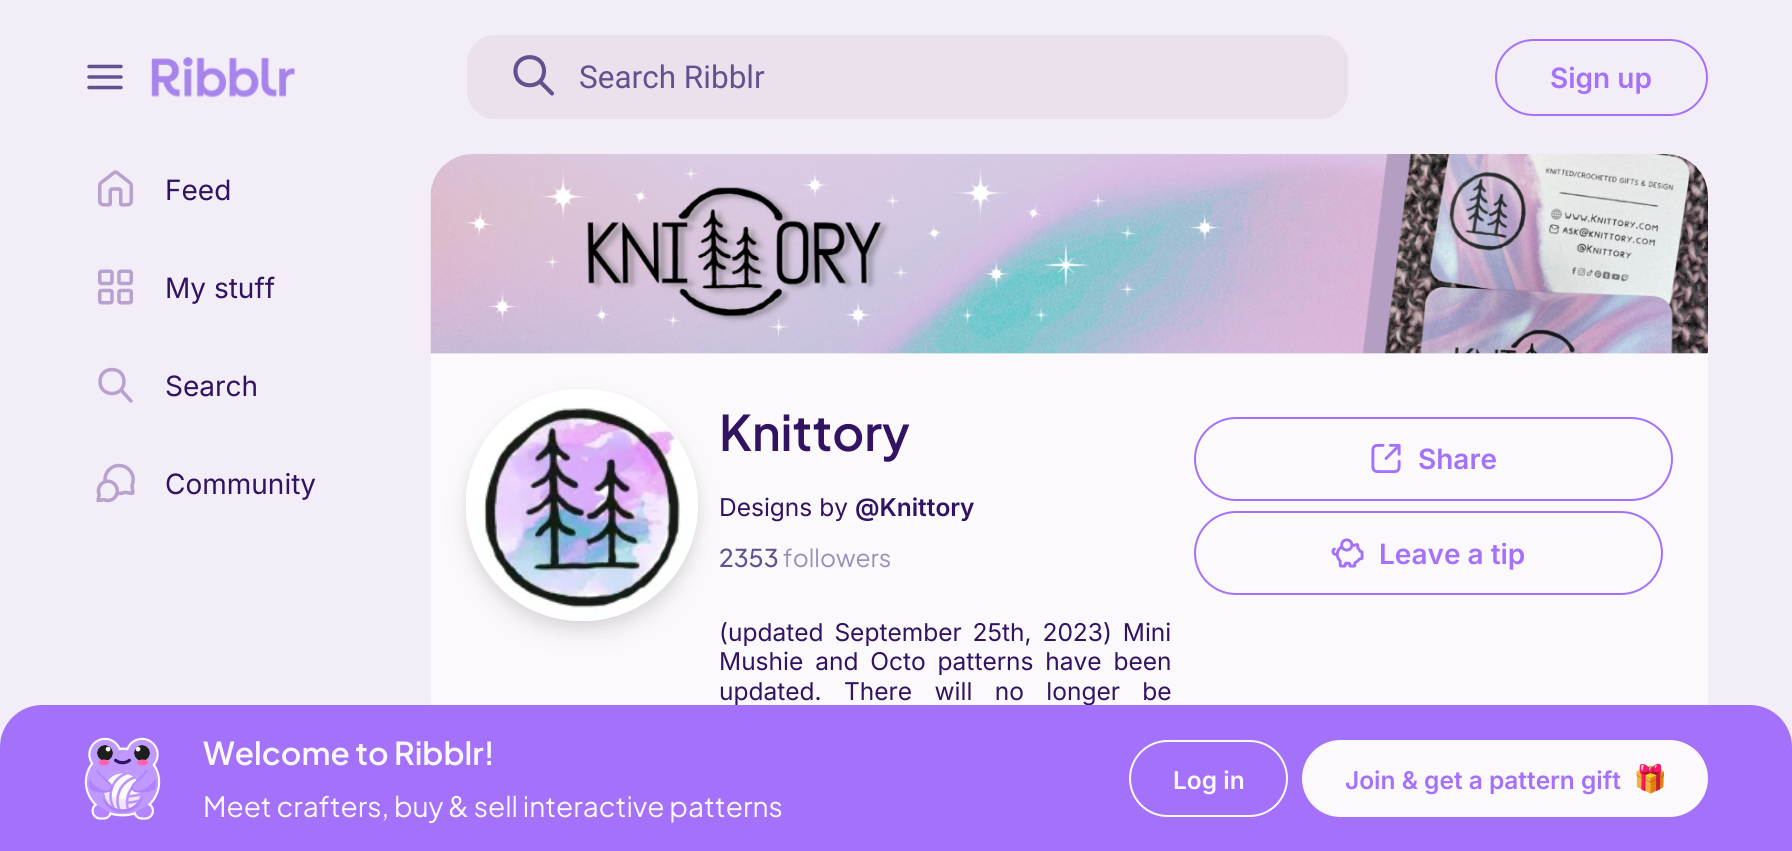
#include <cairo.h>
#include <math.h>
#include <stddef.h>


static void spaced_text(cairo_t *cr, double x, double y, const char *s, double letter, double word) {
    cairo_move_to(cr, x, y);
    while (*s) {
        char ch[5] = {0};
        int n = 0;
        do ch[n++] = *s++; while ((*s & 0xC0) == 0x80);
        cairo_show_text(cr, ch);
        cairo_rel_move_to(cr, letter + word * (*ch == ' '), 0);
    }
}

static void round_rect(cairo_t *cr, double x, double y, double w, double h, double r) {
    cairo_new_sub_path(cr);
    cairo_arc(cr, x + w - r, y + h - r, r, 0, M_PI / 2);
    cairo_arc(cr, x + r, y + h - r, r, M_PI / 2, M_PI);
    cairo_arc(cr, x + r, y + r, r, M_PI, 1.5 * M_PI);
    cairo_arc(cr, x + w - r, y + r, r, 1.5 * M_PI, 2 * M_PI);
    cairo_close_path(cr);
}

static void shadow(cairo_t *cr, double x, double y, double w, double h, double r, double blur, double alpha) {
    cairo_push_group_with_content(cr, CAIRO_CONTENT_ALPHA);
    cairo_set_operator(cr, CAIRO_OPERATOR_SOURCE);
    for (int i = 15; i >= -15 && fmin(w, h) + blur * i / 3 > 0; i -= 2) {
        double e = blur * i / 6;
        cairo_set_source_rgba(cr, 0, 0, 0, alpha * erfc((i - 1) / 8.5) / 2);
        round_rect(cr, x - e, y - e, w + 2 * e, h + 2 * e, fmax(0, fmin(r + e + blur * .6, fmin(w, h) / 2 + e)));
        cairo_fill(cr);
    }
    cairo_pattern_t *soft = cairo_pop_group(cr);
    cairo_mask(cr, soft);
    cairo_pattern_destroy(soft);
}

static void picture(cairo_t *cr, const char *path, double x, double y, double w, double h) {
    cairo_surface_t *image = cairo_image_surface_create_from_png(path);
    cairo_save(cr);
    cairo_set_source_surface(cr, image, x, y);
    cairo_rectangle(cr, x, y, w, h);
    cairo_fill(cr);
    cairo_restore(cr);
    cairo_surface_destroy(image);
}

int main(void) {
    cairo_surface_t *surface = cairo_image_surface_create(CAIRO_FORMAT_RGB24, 1792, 851);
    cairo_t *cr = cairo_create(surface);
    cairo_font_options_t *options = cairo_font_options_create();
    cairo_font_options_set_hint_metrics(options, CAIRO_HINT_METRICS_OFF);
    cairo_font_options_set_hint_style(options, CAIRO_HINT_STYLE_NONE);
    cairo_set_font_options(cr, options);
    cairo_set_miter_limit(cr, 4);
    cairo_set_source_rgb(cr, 0.949, 0.929, 0.961);
    cairo_paint(cr);
    cairo_new_path(cr);
    cairo_move_to(cr, 89, 77);
    cairo_line_to(cr, 121, 77);
    cairo_move_to(cr, 89, 66.5);
    cairo_line_to(cr, 121, 66.5);
    cairo_move_to(cr, 89, 87.5);
    cairo_line_to(cr, 121, 87.5);
    cairo_set_source_rgb(cr, 0.388, 0.318, 0.561);
    cairo_set_line_width(cr, 3.5);
    cairo_set_line_cap(cr, CAIRO_LINE_CAP_ROUND);
    cairo_set_line_join(cr, CAIRO_LINE_JOIN_ROUND);
    cairo_stroke(cr);
    picture(cr, "img1.png", 151, 57, 144, 41);
    cairo_set_source_rgb(cr, 0.918, 0.882, 0.929);
    round_rect(cr, 467, 35, 881, 84, 28);
    cairo_fill(cr);
    cairo_new_path(cr);
    cairo_move_to(cr, 552, 93.5);
    cairo_line_to(cr, 540, 81.5);
    cairo_move_to(cr, 544, 71);
    cairo_curve_to(cr, 544, 90, 515.5, 90, 515.5, 71);
    cairo_curve_to(cr, 515.5, 52.5, 544, 52.5, 544, 71);
    cairo_close_path(cr);
    cairo_set_source_rgb(cr, 0.388, 0.318, 0.561);
    cairo_set_line_width(cr, 4.1);
    cairo_stroke(cr);
    cairo_save(cr);
    round_rect(cr, 467, 35, 881, 84, 28);
    cairo_clip(cr);
    cairo_set_source_rgb(cr, 0.918, 0.882, 0.929);
    cairo_rectangle(cr, 558, 53, 790, 49);
    cairo_fill(cr);
    cairo_restore(cr);
    cairo_select_font_face(cr, "Roboto", CAIRO_FONT_SLANT_NORMAL, CAIRO_FONT_WEIGHT_NORMAL);
    cairo_set_font_size(cr, 31.5);
    cairo_move_to(cr, 579, 88);
    cairo_show_text(cr, "Search Ribblr");
    round_rect(cr, 1496, 40, 211, 75, 37.5);
    cairo_set_source_rgb(cr, 0.643, 0.443, 0.984);
    cairo_set_line_width(cr, 2);
    cairo_set_line_cap(cr, CAIRO_LINE_CAP_BUTT);
    cairo_set_line_join(cr, CAIRO_LINE_JOIN_MITER);
    cairo_stroke(cr);
    cairo_select_font_face(cr, "Inter SemiBold", CAIRO_FONT_SLANT_NORMAL, CAIRO_FONT_WEIGHT_NORMAL);
    cairo_set_font_size(cr, 28);
    cairo_move_to(cr, 1550, 88);
    cairo_show_text(cr, "Sign up");
    picture(cr, "img2.png", 98, 170, 35, 37);
    cairo_select_font_face(cr, "Inter", CAIRO_FONT_SLANT_NORMAL, CAIRO_FONT_WEIGHT_NORMAL);
    cairo_set_source_rgb(cr, 0.192, 0.078, 0.384);
    cairo_move_to(cr, 165, 200);
    cairo_show_text(cr, "Feed");
    picture(cr, "img3.png", 98, 269, 35, 36);
    cairo_move_to(cr, 165, 298);
    cairo_show_text(cr, "My stuff");
    cairo_new_path(cr);
    cairo_move_to(cr, 131, 401);
    cairo_line_to(cr, 121, 390);
    cairo_move_to(cr, 124, 381.5);
    cairo_curve_to(cr, 124, 397.5, 100, 397.5, 100, 381.5);
    cairo_curve_to(cr, 100, 365.5, 124, 365.5, 124, 381.5);
    cairo_close_path(cr);
    cairo_set_source_rgb(cr, 0.722, 0.627, 0.812);
    cairo_set_line_width(cr, 3.5);
    cairo_set_line_cap(cr, CAIRO_LINE_CAP_ROUND);
    cairo_set_line_join(cr, CAIRO_LINE_JOIN_ROUND);
    cairo_stroke(cr);
    cairo_set_source_rgb(cr, 0.192, 0.078, 0.384);
    cairo_move_to(cr, 165, 396);
    cairo_show_text(cr, "Search");
    picture(cr, "img4.png", 96, 463, 39, 40);
    cairo_move_to(cr, 165, 494);
    cairo_show_text(cr, "Community");
    picture(cr, "img5.png", 430, 154, 1278, 200);
    cairo_set_source_rgb(cr, 0.984, 0.976, 0.988);
    cairo_rectangle(cr, 431, 354, 1277, 351);
    cairo_fill(cr);
    cairo_set_source_rgb(cr, 0.235, 0.259, 0.341);
    shadow(cr, 466, 401, 232, 233, 116, 12, 0.12);
    cairo_set_source_rgb(cr, 0.569, 0.439, 0.439);
    shadow(cr, 466, 394, 232, 233, 116, 5, 0.12);
    picture(cr, "img6.png", 466, 389, 232, 232);
    cairo_select_font_face(cr, "Plus Jakarta Sans SemiBold", CAIRO_FONT_SLANT_NORMAL, CAIRO_FONT_WEIGHT_NORMAL);
    cairo_set_font_size(cr, 49);
    cairo_set_source_rgb(cr, 0.192, 0.078, 0.384);
    cairo_move_to(cr, 719, 451);
    cairo_show_text(cr, "Knittory");
    cairo_select_font_face(cr, "Inter", CAIRO_FONT_SLANT_NORMAL, CAIRO_FONT_WEIGHT_NORMAL);
    cairo_set_font_size(cr, 24.5);
    cairo_move_to(cr, 719, 516);
    cairo_show_text(cr, "Designs by");
    cairo_select_font_face(cr, "Inter SemiBold", CAIRO_FONT_SLANT_NORMAL, CAIRO_FONT_WEIGHT_NORMAL);
    cairo_move_to(cr, 855, 516);
    cairo_show_text(cr, "@Knittory");
    cairo_select_font_face(cr, "Plus Jakarta Sans Medium", CAIRO_FONT_SLANT_NORMAL, CAIRO_FONT_WEIGHT_NORMAL);
    cairo_set_source_rgb(cr, 0.388, 0.318, 0.561);
    cairo_move_to(cr, 719, 567);
    cairo_show_text(cr, "2353");
    cairo_select_font_face(cr, "Plus Jakarta Sans", CAIRO_FONT_SLANT_NORMAL, CAIRO_FONT_WEIGHT_NORMAL);
    cairo_set_source_rgb(cr, 0.608, 0.561, 0.729);
    cairo_move_to(cr, 783, 567);
    cairo_show_text(cr, "followers");
    round_rect(cr, 1195, 418, 477, 82, 41);
    cairo_set_source_rgb(cr, 0.643, 0.443, 0.984);
    cairo_set_line_width(cr, 2);
    cairo_set_line_cap(cr, CAIRO_LINE_CAP_BUTT);
    cairo_set_line_join(cr, CAIRO_LINE_JOIN_MITER);
    cairo_stroke(cr);
    picture(cr, "img7.png", 1371, 443, 30, 31);
    cairo_select_font_face(cr, "Inter SemiBold", CAIRO_FONT_SLANT_NORMAL, CAIRO_FONT_WEIGHT_NORMAL);
    cairo_set_font_size(cr, 28);
    cairo_move_to(cr, 1418, 469);
    cairo_show_text(cr, "Share");
    round_rect(cr, 1195, 512, 467, 82, 41);
    cairo_stroke(cr);
    picture(cr, "img8.png", 1331, 538, 33, 30);
    cairo_move_to(cr, 1379, 564);
    cairo_show_text(cr, "Leave a tip");
    cairo_select_font_face(cr, "Inter", CAIRO_FONT_SLANT_NORMAL, CAIRO_FONT_WEIGHT_NORMAL);
    cairo_set_font_size(cr, 24.5);
    cairo_set_source_rgb(cr, 0.192, 0.078, 0.384);
    spaced_text(cr, 719, 641, "(updated September 25th, 2023) Mini", 0, 4);
    spaced_text(cr, 719, 670, "Mushie and Octo patterns have been", 0, 5);
    spaced_text(cr, 719, 700, "updated. There will no longer be", 0, 15.5);
    cairo_set_source_rgb(cr, 0.643, 0.443, 0.984);
    cairo_new_path(cr);
    cairo_move_to(cr, 42, 705);
    cairo_line_to(cr, 1750, 705);
    cairo_curve_to(cr, 1773, 705, 1792, 724, 1792, 747);
    cairo_line_to(cr, 1792, 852);
    cairo_line_to(cr, 0, 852);
    cairo_line_to(cr, 0, 747);
    cairo_curve_to(cr, 0, 724, 19, 705, 42, 705);
    cairo_close_path(cr);
    cairo_fill(cr);
    picture(cr, "img9.png", 84, 737, 77, 83);
    cairo_select_font_face(cr, "Plus Jakarta Sans SemiBold", CAIRO_FONT_SLANT_NORMAL, CAIRO_FONT_WEIGHT_NORMAL);
    cairo_set_font_size(cr, 31.5);
    cairo_set_source_rgb(cr, 0.984, 0.976, 0.988);
    cairo_move_to(cr, 203, 765);
    cairo_show_text(cr, "Welcome to Ribblr!");
    cairo_select_font_face(cr, "Plus Jakarta Sans", CAIRO_FONT_SLANT_NORMAL, CAIRO_FONT_WEIGHT_NORMAL);
    cairo_set_font_size(cr, 28);
    cairo_move_to(cr, 203, 817);
    cairo_show_text(cr, "Meet crafters, buy & sell interactive patterns");
    round_rect(cr, 1130, 741, 157, 75, 37.5);
    cairo_stroke(cr);
    cairo_select_font_face(cr, "Inter SemiBold", CAIRO_FONT_SLANT_NORMAL, CAIRO_FONT_WEIGHT_NORMAL);
    cairo_set_font_size(cr, 24.5);
    cairo_move_to(cr, 1173, 789);
    cairo_show_text(cr, "Log in");
    round_rect(cr, 1302, 740, 406, 77, 38.5);
    cairo_fill(cr);
    cairo_set_source_rgb(cr, 0.643, 0.443, 0.984);
    cairo_move_to(cr, 1345, 789);
    cairo_show_text(cr, "Join & get a pattern gift");
    picture(cr, "img10.png", 1636, 763, 29, 31);
    cairo_surface_write_to_png(surface, "page.png");
    cairo_font_options_destroy(options);
    cairo_destroy(cr);
    cairo_surface_destroy(surface);
    return 0;
}
